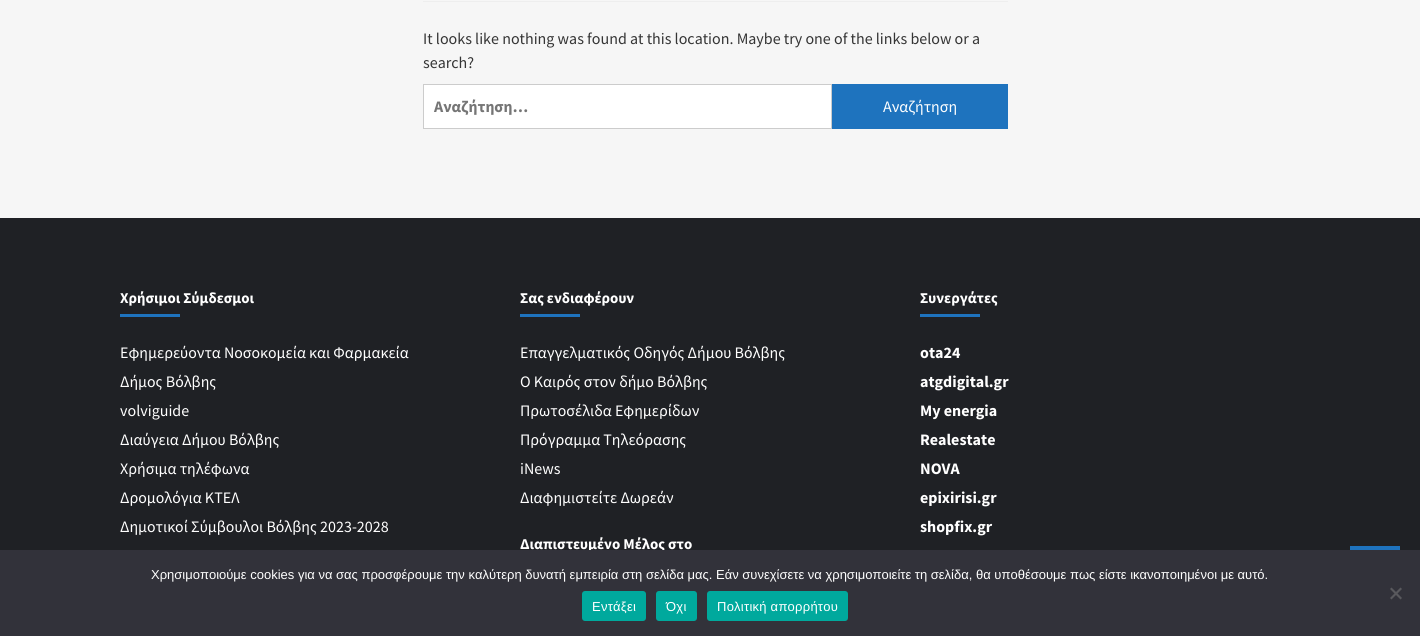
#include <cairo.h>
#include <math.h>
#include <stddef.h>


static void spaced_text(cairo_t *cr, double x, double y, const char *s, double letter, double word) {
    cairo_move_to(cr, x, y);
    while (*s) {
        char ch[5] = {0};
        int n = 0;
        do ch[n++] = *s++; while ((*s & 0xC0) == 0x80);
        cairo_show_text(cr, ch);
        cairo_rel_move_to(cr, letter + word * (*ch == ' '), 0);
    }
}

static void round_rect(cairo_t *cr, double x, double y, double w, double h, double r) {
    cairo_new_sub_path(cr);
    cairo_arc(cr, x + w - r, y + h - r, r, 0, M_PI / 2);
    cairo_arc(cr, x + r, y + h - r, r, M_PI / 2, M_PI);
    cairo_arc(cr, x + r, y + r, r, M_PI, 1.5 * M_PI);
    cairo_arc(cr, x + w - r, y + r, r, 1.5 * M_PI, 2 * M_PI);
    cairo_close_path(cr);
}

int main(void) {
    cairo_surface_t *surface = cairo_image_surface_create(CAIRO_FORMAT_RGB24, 1420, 636);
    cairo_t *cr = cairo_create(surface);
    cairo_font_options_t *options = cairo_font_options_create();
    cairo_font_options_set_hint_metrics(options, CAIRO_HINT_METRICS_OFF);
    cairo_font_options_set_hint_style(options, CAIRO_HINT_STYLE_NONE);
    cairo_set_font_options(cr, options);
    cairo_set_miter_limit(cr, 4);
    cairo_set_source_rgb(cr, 0.961, 0.961, 0.961);
    cairo_paint(cr);
    cairo_set_source_rgb(cr, 0.933, 0.933, 0.933);
    cairo_rectangle(cr, 423, 1, 585, 1);
    cairo_fill(cr);
    cairo_select_font_face(cr, "Source Sans Pro", CAIRO_FONT_SLANT_NORMAL, CAIRO_FONT_WEIGHT_NORMAL);
    cairo_set_font_size(cr, 16);
    cairo_set_source_rgb(cr, 0.208, 0.208, 0.208);
    cairo_move_to(cr, 423, 44);
    cairo_show_text(cr, "It looks like nothing was found at this location. Maybe try one of the links below or a");
    cairo_move_to(cr, 423, 68);
    cairo_show_text(cr, "search?");
    cairo_set_source_rgb(cr, 1, 1, 1);
    cairo_rectangle(cr, 423.5, 84.5, 408, 44);
    cairo_fill_preserve(cr);
    cairo_set_source_rgb(cr, 0.8, 0.8, 0.8);
    cairo_set_line_width(cr, 1);
    cairo_stroke(cr);
    cairo_select_font_face(cr, "Source Sans Pro", CAIRO_FONT_SLANT_NORMAL, CAIRO_FONT_WEIGHT_BOLD);
    cairo_set_source_rgb(cr, 0.459, 0.459, 0.459);
    cairo_move_to(cr, 434, 112);
    cairo_show_text(cr, "Αναζήτηση…");
    cairo_set_source_rgb(cr, 0.118, 0.451, 0.745);
    cairo_rectangle(cr, 832, 84, 176, 45);
    cairo_fill(cr);
    cairo_select_font_face(cr, "Source Sans Pro", CAIRO_FONT_SLANT_NORMAL, CAIRO_FONT_WEIGHT_NORMAL);
    cairo_set_source_rgb(cr, 1, 1, 1);
    cairo_move_to(cr, 883, 112);
    cairo_show_text(cr, "Αναζήτηση");
    cairo_set_source_rgb(cr, 0.122, 0.129, 0.145);
    cairo_rectangle(cr, 0, 218, 1420, 332);
    cairo_fill(cr);
    cairo_select_font_face(cr, "Source Sans Pro", CAIRO_FONT_SLANT_NORMAL, CAIRO_FONT_WEIGHT_BOLD);
    cairo_set_font_size(cr, 15);
    cairo_set_source_rgb(cr, 1, 1, 1);
    cairo_move_to(cr, 120, 303);
    cairo_show_text(cr, "Χρήσιμοι Σύμδεσμοι");
    cairo_set_source_rgb(cr, 0.118, 0.451, 0.745);
    cairo_rectangle(cr, 120, 314, 60, 3);
    cairo_fill(cr);
    cairo_select_font_face(cr, "Source Sans Pro", CAIRO_FONT_SLANT_NORMAL, CAIRO_FONT_WEIGHT_NORMAL);
    cairo_set_font_size(cr, 16);
    cairo_set_source_rgb(cr, 1, 1, 1);
    cairo_move_to(cr, 120, 358);
    cairo_show_text(cr, "Εφημερεύοντα Νοσοκομεία και Φαρμακεία");
    cairo_move_to(cr, 120, 387);
    cairo_show_text(cr, "Δήμος Βόλβης");
    cairo_move_to(cr, 120, 416);
    cairo_show_text(cr, "volviguide");
    cairo_move_to(cr, 120, 445);
    cairo_show_text(cr, "Διαύγεια Δήμου Βόλβης");
    cairo_move_to(cr, 120, 474);
    cairo_show_text(cr, "Χρήσιμα τηλέφωνα");
    cairo_move_to(cr, 120, 503);
    cairo_show_text(cr, "Δρομολόγια ΚΤΕΛ");
    cairo_move_to(cr, 120, 532);
    cairo_show_text(cr, "Δημοτικοί Σύμβουλοι Βόλβης 2023-2028");
    cairo_select_font_face(cr, "Source Sans Pro", CAIRO_FONT_SLANT_NORMAL, CAIRO_FONT_WEIGHT_BOLD);
    cairo_set_font_size(cr, 15);
    cairo_move_to(cr, 520, 303);
    cairo_show_text(cr, "Σας ενδιαφέρουν");
    cairo_set_source_rgb(cr, 0.118, 0.451, 0.745);
    cairo_rectangle(cr, 520, 314, 60, 3);
    cairo_fill(cr);
    cairo_select_font_face(cr, "Source Sans Pro", CAIRO_FONT_SLANT_NORMAL, CAIRO_FONT_WEIGHT_NORMAL);
    cairo_set_font_size(cr, 16);
    cairo_set_source_rgb(cr, 1, 1, 1);
    cairo_move_to(cr, 520, 358);
    cairo_show_text(cr, "Επαγγελματικός Οδηγός Δήμου Βόλβης");
    cairo_move_to(cr, 520, 387);
    cairo_show_text(cr, "Ο Καιρός στον δήμο Βόλβης");
    cairo_move_to(cr, 520, 416);
    cairo_show_text(cr, "Πρωτοσέλιδα Εφημερίδων");
    cairo_move_to(cr, 520, 445);
    cairo_show_text(cr, "Πρόγραμμα Τηλεόρασης");
    cairo_move_to(cr, 520, 474);
    cairo_show_text(cr, "iNews");
    cairo_move_to(cr, 520, 503);
    cairo_show_text(cr, "Διαφημιστείτε Δωρεάν");
    cairo_select_font_face(cr, "Source Sans Pro", CAIRO_FONT_SLANT_NORMAL, CAIRO_FONT_WEIGHT_BOLD);
    cairo_set_font_size(cr, 15);
    cairo_move_to(cr, 520, 549);
    cairo_show_text(cr, "Διαπιστευμένο Μέλος στο");
    cairo_move_to(cr, 920, 303);
    cairo_show_text(cr, "Συνεργάτες");
    cairo_set_source_rgb(cr, 0.118, 0.451, 0.745);
    cairo_rectangle(cr, 920, 314, 60, 3);
    cairo_fill(cr);
    cairo_set_font_size(cr, 16);
    cairo_set_source_rgb(cr, 1, 1, 1);
    cairo_move_to(cr, 920, 358);
    cairo_show_text(cr, "ota24");
    cairo_move_to(cr, 920, 387);
    cairo_show_text(cr, "atgdigital.gr");
    cairo_move_to(cr, 920, 416);
    cairo_show_text(cr, "My energia");
    cairo_move_to(cr, 920, 445);
    cairo_show_text(cr, "Realestate");
    cairo_move_to(cr, 920, 474);
    cairo_show_text(cr, "NOVA");
    cairo_move_to(cr, 920, 503);
    cairo_show_text(cr, "epixirisi.gr");
    cairo_move_to(cr, 920, 532);
    cairo_show_text(cr, "shopfix.gr");
    cairo_set_source_rgb(cr, 0.118, 0.451, 0.745);
    cairo_rectangle(cr, 1350, 546, 50, 4);
    cairo_fill(cr);
    cairo_set_source_rgb(cr, 0.196, 0.196, 0.227);
    cairo_rectangle(cr, 0, 550, 1420, 86);
    cairo_fill(cr);
    cairo_select_font_face(cr, "Liberation Sans", CAIRO_FONT_SLANT_NORMAL, CAIRO_FONT_WEIGHT_NORMAL);
    cairo_set_font_size(cr, 13);
    cairo_set_source_rgb(cr, 1, 1, 1);
    cairo_move_to(cr, 151, 579);
    cairo_show_text(cr, "Χρησιμοποιούμε cookies για να σας προσφέρουμε την καλύτερη δυνατή εμπειρία στη σελίδα μας. Εάν συνεχίσετε να χρησιμοποιείτε τη σελίδα, θα υποθέσουμε πως είστε ικανοποιημένοι με αυτό.");
    cairo_set_source_rgb(cr, 0.349, 0.349, 0.365);
    cairo_new_path(cr);
    cairo_move_to(cr, 1400.5, 587.5);
    cairo_line_to(cr, 1402, 589);
    cairo_line_to(cr, 1391.5, 599.5);
    cairo_line_to(cr, 1390, 598);
    cairo_close_path(cr);
    cairo_fill(cr);
    cairo_new_path(cr);
    cairo_move_to(cr, 1390, 589);
    cairo_line_to(cr, 1391.5, 587.5);
    cairo_line_to(cr, 1402, 598);
    cairo_line_to(cr, 1400.5, 599.5);
    cairo_close_path(cr);
    cairo_fill(cr);
    cairo_set_source_rgb(cr, 0, 0.663, 0.616);
    round_rect(cr, 582, 591, 64, 30, 3);
    cairo_fill(cr);
    cairo_set_source_rgb(cr, 1, 1, 1);
    spaced_text(cr, 592, 611, "Εντάξει", 0.25, 0);
    cairo_set_source_rgb(cr, 0, 0.663, 0.616);
    round_rect(cr, 656, 591, 41, 30, 3);
    cairo_fill(cr);
    cairo_set_source_rgb(cr, 1, 1, 1);
    spaced_text(cr, 666, 611, "Όχι", 0.25, 0);
    cairo_set_source_rgb(cr, 0, 0.663, 0.616);
    round_rect(cr, 707, 591, 141, 30, 3);
    cairo_fill(cr);
    cairo_set_source_rgb(cr, 1, 1, 1);
    spaced_text(cr, 717, 611, "Πολιτική απορρήτου", 0.25, 0);
    cairo_surface_write_to_png(surface, "page.png");
    cairo_font_options_destroy(options);
    cairo_destroy(cr);
    cairo_surface_destroy(surface);
    return 0;
}
